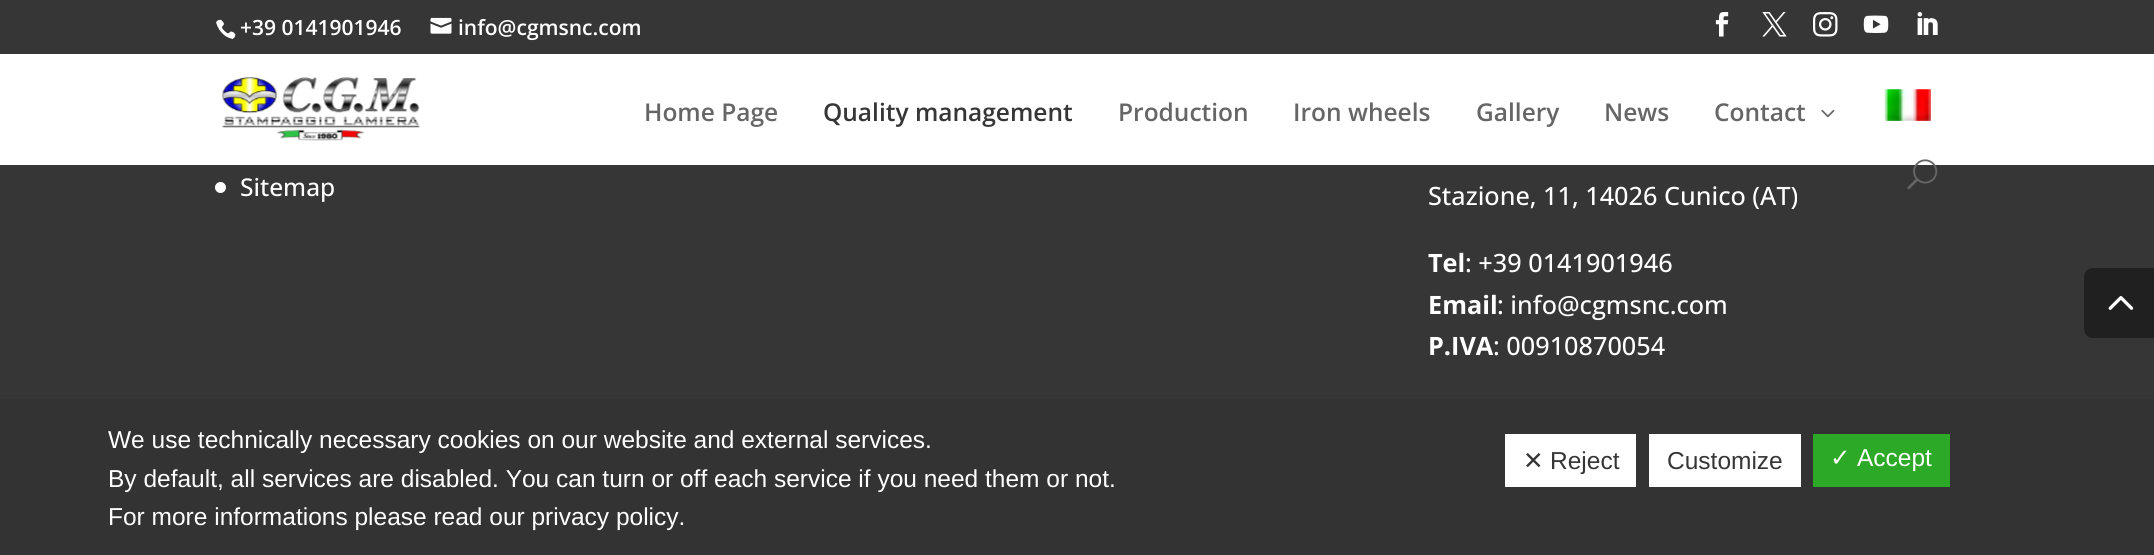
#include <cairo.h>
#include <math.h>
#include <stddef.h>


static void picture(cairo_t *cr, const char *path, double x, double y, double w, double h) {
    cairo_surface_t *image = cairo_image_surface_create_from_png(path);
    cairo_save(cr);
    cairo_set_source_surface(cr, image, x, y);
    cairo_rectangle(cr, x, y, w, h);
    cairo_fill(cr);
    cairo_restore(cr);
    cairo_surface_destroy(image);
}

int main(void) {
    cairo_surface_t *surface = cairo_image_surface_create(CAIRO_FORMAT_RGB24, 2154, 555);
    cairo_t *cr = cairo_create(surface);
    cairo_font_options_t *options = cairo_font_options_create();
    cairo_font_options_set_hint_metrics(options, CAIRO_HINT_METRICS_OFF);
    cairo_font_options_set_hint_style(options, CAIRO_HINT_STYLE_NONE);
    cairo_set_font_options(cr, options);
    cairo_set_miter_limit(cr, 4);
    cairo_set_source_rgb(cr, 0.212, 0.212, 0.212);
    cairo_paint(cr);
    picture(cr, "img1.png", 216, 19, 20, 20);
    cairo_select_font_face(cr, "Open Sans SemiBold", CAIRO_FONT_SLANT_NORMAL, CAIRO_FONT_WEIGHT_NORMAL);
    cairo_set_font_size(cr, 21);
    cairo_set_source_rgb(cr, 1, 1, 1);
    cairo_move_to(cr, 240, 35);
    cairo_show_text(cr, "+39 0141901946");
    picture(cr, "img2.png", 430, 17, 22, 17);
    cairo_move_to(cr, 458, 35);
    cairo_show_text(cr, "info@cgmsnc.com");
    picture(cr, "img3.png", 1715, 12, 14, 25);
    picture(cr, "img4.png", 1762, 12, 25, 25);
    picture(cr, "img5.png", 1813, 12, 25, 25);
    picture(cr, "img6.png", 1863, 15, 26, 18);
    picture(cr, "img7.png", 1917, 12, 21, 23);
    cairo_rectangle(cr, 0, 54, 2154, 111);
    cairo_fill(cr);
    picture(cr, "img8.png", 221, 77, 199, 64);
    cairo_set_font_size(cr, 24.5);
    cairo_set_source_rgb(cr, 0.4, 0.4, 0.4);
    cairo_move_to(cr, 644, 121);
    cairo_show_text(cr, "Home Page");
    cairo_set_source_rgb(cr, 0.212, 0.212, 0.212);
    cairo_move_to(cr, 823, 121);
    cairo_show_text(cr, "Quality management");
    cairo_set_source_rgb(cr, 0.4, 0.4, 0.4);
    cairo_move_to(cr, 1118, 121);
    cairo_show_text(cr, "Production");
    cairo_move_to(cr, 1293, 121);
    cairo_show_text(cr, "Iron wheels");
    cairo_move_to(cr, 1476, 121);
    cairo_show_text(cr, "Gallery");
    cairo_move_to(cr, 1604, 121);
    cairo_show_text(cr, "News");
    cairo_move_to(cr, 1714, 121);
    cairo_show_text(cr, "Contact");
    picture(cr, "img9.png", 1821, 109, 14, 9);
    picture(cr, "img10.png", 1884, 89, 47, 32);
    picture(cr, "img11.png", 1907, 159, 31, 31);
    cairo_set_source_rgb(cr, 1, 1, 1);
    cairo_arc(cr, 220.5, 187.5, 5.5, 0, 2 * M_PI);
    cairo_fill(cr);
    cairo_select_font_face(cr, "Open Sans Medium", CAIRO_FONT_SLANT_NORMAL, CAIRO_FONT_WEIGHT_NORMAL);
    cairo_move_to(cr, 240, 196);
    cairo_show_text(cr, "Sitemap");
    cairo_set_font_size(cr, 25.25);
    cairo_move_to(cr, 1428, 205);
    cairo_show_text(cr, "Stazione, 11, 14026 Cunico (AT)");
    cairo_select_font_face(cr, "Open Sans", CAIRO_FONT_SLANT_NORMAL, CAIRO_FONT_WEIGHT_BOLD);
    cairo_move_to(cr, 1428, 272);
    cairo_show_text(cr, "Tel");
    cairo_select_font_face(cr, "Open Sans Medium", CAIRO_FONT_SLANT_NORMAL, CAIRO_FONT_WEIGHT_NORMAL);
    cairo_move_to(cr, 1465, 272);
    cairo_show_text(cr, ": +39 0141901946");
    cairo_select_font_face(cr, "Open Sans", CAIRO_FONT_SLANT_NORMAL, CAIRO_FONT_WEIGHT_BOLD);
    cairo_move_to(cr, 1428, 314);
    cairo_show_text(cr, "Email");
    cairo_select_font_face(cr, "Open Sans Medium", CAIRO_FONT_SLANT_NORMAL, CAIRO_FONT_WEIGHT_NORMAL);
    cairo_move_to(cr, 1497, 314);
    cairo_show_text(cr, ": info@cgmsnc.com");
    cairo_select_font_face(cr, "Open Sans", CAIRO_FONT_SLANT_NORMAL, CAIRO_FONT_WEIGHT_BOLD);
    cairo_move_to(cr, 1428, 355);
    cairo_show_text(cr, "P.IVA");
    cairo_select_font_face(cr, "Open Sans Medium", CAIRO_FONT_SLANT_NORMAL, CAIRO_FONT_WEIGHT_NORMAL);
    cairo_move_to(cr, 1493, 355);
    cairo_show_text(cr, ": 00910870054");
    cairo_set_source_rgb(cr, 0.125, 0.125, 0.125);
    cairo_new_path(cr);
    cairo_move_to(cr, 2093, 268);
    cairo_line_to(cr, 2154, 268);
    cairo_line_to(cr, 2154, 338);
    cairo_line_to(cr, 2093, 338);
    cairo_curve_to(cr, 2088, 338, 2084, 334, 2084, 329);
    cairo_line_to(cr, 2084, 277);
    cairo_curve_to(cr, 2084, 272, 2088, 268, 2093, 268);
    cairo_close_path(cr);
    cairo_fill(cr);
    picture(cr, "img12.png", 2108, 296, 26, 14);
    cairo_set_source_rgb(cr, 0.2, 0.2, 0.2);
    cairo_rectangle(cr, 0, 399, 2154, 156);
    cairo_fill(cr);
    cairo_select_font_face(cr, "Liberation Sans", CAIRO_FONT_SLANT_NORMAL, CAIRO_FONT_WEIGHT_NORMAL);
    cairo_set_font_size(cr, 24.5);
    cairo_set_source_rgb(cr, 1, 1, 1);
    cairo_move_to(cr, 108, 448);
    cairo_show_text(cr, "We use technically necessary cookies on our website and external services.");
    cairo_move_to(cr, 108, 487);
    cairo_show_text(cr, "By default, all services are disabled. You can turn or off each service if you need them or not.");
    cairo_move_to(cr, 108, 525);
    cairo_show_text(cr, "For more informations please read our privacy policy.");
    cairo_rectangle(cr, 1505, 434, 131, 53);
    cairo_fill(cr);
    cairo_select_font_face(cr, "DejaVu Sans", CAIRO_FONT_SLANT_NORMAL, CAIRO_FONT_WEIGHT_NORMAL);
    cairo_set_source_rgb(cr, 0.212, 0.212, 0.212);
    cairo_move_to(cr, 1523, 469);
    cairo_show_text(cr, "✕");
    cairo_select_font_face(cr, "Liberation Sans", CAIRO_FONT_SLANT_NORMAL, CAIRO_FONT_WEIGHT_NORMAL);
    cairo_move_to(cr, 1550, 469);
    cairo_show_text(cr, "Reject");
    cairo_set_source_rgb(cr, 1, 1, 1);
    cairo_rectangle(cr, 1649, 434, 152, 53);
    cairo_fill(cr);
    cairo_set_source_rgb(cr, 0.212, 0.212, 0.212);
    cairo_move_to(cr, 1667, 469);
    cairo_show_text(cr, "Customize");
    cairo_set_source_rgb(cr, 0.173, 0.667, 0.153);
    cairo_rectangle(cr, 1813, 434, 137, 53);
    cairo_fill(cr);
    cairo_select_font_face(cr, "DejaVu Sans", CAIRO_FONT_SLANT_NORMAL, CAIRO_FONT_WEIGHT_NORMAL);
    cairo_set_source_rgb(cr, 1, 1, 1);
    cairo_move_to(cr, 1830, 466);
    cairo_show_text(cr, "✓");
    cairo_select_font_face(cr, "Liberation Sans", CAIRO_FONT_SLANT_NORMAL, CAIRO_FONT_WEIGHT_NORMAL);
    cairo_move_to(cr, 1857, 466);
    cairo_show_text(cr, "Accept");
    cairo_surface_write_to_png(surface, "page.png");
    cairo_font_options_destroy(options);
    cairo_destroy(cr);
    cairo_surface_destroy(surface);
    return 0;
}
